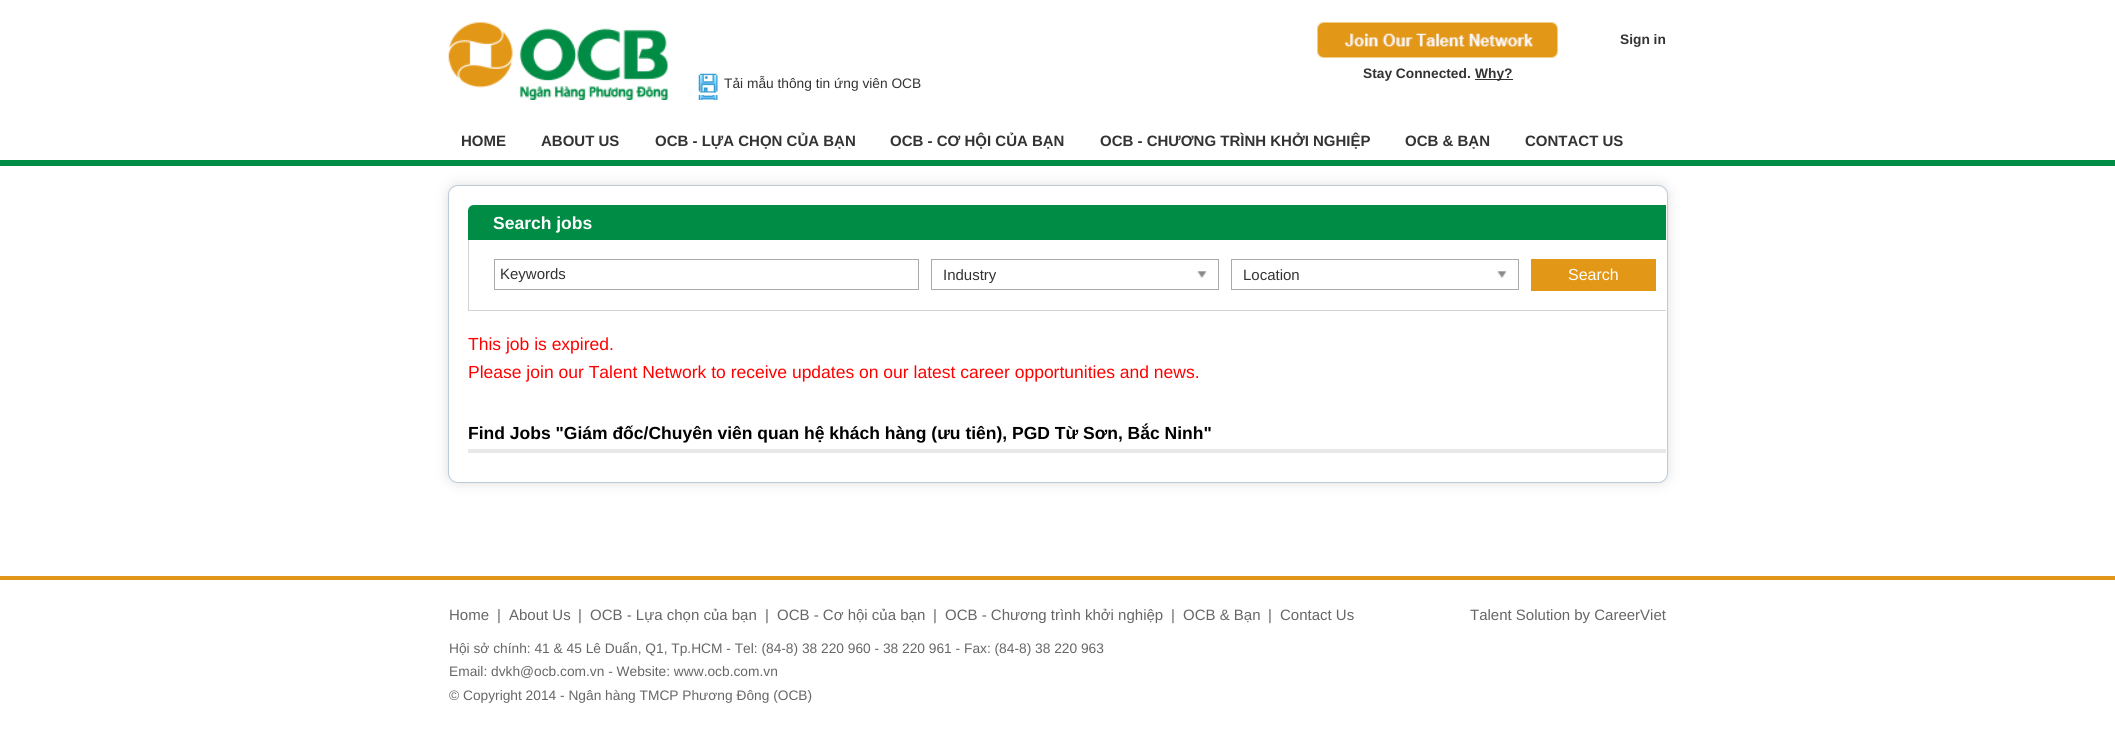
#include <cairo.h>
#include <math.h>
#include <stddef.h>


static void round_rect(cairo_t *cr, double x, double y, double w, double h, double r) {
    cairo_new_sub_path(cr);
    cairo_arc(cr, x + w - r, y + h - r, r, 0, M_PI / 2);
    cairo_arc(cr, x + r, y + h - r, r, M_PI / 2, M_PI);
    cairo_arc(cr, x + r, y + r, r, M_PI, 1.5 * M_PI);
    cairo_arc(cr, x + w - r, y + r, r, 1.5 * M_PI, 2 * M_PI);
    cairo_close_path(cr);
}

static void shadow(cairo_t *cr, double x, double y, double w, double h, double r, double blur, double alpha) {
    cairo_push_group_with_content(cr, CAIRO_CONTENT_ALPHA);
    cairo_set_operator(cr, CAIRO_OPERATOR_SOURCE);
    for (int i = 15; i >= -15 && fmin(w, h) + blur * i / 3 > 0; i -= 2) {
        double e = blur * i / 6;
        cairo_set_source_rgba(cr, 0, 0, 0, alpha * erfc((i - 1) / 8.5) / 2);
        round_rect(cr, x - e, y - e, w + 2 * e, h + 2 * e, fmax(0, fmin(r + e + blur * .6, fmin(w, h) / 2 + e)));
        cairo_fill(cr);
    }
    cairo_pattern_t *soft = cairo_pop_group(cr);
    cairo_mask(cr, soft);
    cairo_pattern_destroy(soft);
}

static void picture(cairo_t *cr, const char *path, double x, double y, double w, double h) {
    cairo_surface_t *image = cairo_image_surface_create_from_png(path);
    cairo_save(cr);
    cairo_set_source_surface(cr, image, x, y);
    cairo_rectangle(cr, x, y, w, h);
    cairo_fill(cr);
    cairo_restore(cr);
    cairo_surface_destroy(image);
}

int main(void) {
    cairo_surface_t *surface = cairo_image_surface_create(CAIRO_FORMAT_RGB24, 2115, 733);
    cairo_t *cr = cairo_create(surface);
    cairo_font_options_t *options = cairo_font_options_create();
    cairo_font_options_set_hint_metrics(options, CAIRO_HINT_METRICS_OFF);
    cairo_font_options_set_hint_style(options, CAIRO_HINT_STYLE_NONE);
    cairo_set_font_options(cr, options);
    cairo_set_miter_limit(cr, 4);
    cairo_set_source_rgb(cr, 1, 1, 1);
    cairo_paint(cr);
    cairo_set_source_rgb(cr, 0, 0.549, 0.267);
    cairo_rectangle(cr, 0, 160, 2115, 6);
    cairo_fill(cr);
    picture(cr, "img1.png", 448, 22, 220, 78);
    cairo_select_font_face(cr, "Liberation Sans", CAIRO_FONT_SLANT_NORMAL, CAIRO_FONT_WEIGHT_BOLD);
    cairo_set_font_size(cr, 13.75);
    cairo_set_source_rgb(cr, 0.2, 0.2, 0.2);
    cairo_move_to(cr, 1620, 44);
    cairo_show_text(cr, "Sign in");
    picture(cr, "img2.png", 1317, 22, 241, 36);
    cairo_move_to(cr, 1363, 78);
    cairo_show_text(cr, "Stay Connected.");
    cairo_rectangle(cr, 1475, 79, 38, 1);
    cairo_fill(cr);
    cairo_move_to(cr, 1475, 78);
    cairo_show_text(cr, "Why?");
    picture(cr, "img3.png", 698, 73, 20, 20);
    cairo_select_font_face(cr, "Liberation Sans", CAIRO_FONT_SLANT_NORMAL, CAIRO_FONT_WEIGHT_NORMAL);
    cairo_move_to(cr, 724, 88);
    cairo_show_text(cr, "Tải mẫu thông tin ứng viên OCB");
    picture(cr, "img4.png", 698, 95, 20, 5);
    cairo_select_font_face(cr, "Liberation Sans", CAIRO_FONT_SLANT_NORMAL, CAIRO_FONT_WEIGHT_BOLD);
    cairo_set_font_size(cr, 15);
    cairo_move_to(cr, 461, 146);
    cairo_show_text(cr, "HOME");
    cairo_move_to(cr, 541, 146);
    cairo_show_text(cr, "ABOUT US");
    cairo_move_to(cr, 655, 146);
    cairo_show_text(cr, "OCB - LỰA CHỌN CỦA BẠN");
    cairo_move_to(cr, 890, 146);
    cairo_show_text(cr, "OCB - CƠ HỘI CỦA BẠN");
    cairo_move_to(cr, 1100, 146);
    cairo_show_text(cr, "OCB - CHƯƠNG TRÌNH KHỞI NGHIỆP");
    cairo_move_to(cr, 1405, 146);
    cairo_show_text(cr, "OCB & BẠN");
    cairo_move_to(cr, 1525, 146);
    cairo_show_text(cr, "CONTACT US");
    cairo_set_source_rgb(cr, 0.824, 0.824, 0.824);
    shadow(cr, 448, 185, 1220, 298, 10, 6, 0.75);
    cairo_set_source_rgb(cr, 1, 1, 1);
    round_rect(cr, 448.5, 185.5, 1219, 297, 9.5);
    cairo_fill_preserve(cr);
    cairo_set_source_rgb(cr, 0.737, 0.796, 0.851);
    cairo_set_line_width(cr, 1);
    cairo_stroke(cr);
    cairo_set_source_rgb(cr, 0, 0.549, 0.267);
    cairo_new_path(cr);
    cairo_move_to(cr, 474, 205);
    cairo_line_to(cr, 1666, 205);
    cairo_line_to(cr, 1666, 240);
    cairo_line_to(cr, 468, 240);
    cairo_line_to(cr, 468, 211);
    cairo_curve_to(cr, 468, 207.5, 470.5, 205, 474, 205);
    cairo_close_path(cr);
    cairo_fill(cr);
    cairo_set_font_size(cr, 17.5);
    cairo_set_source_rgb(cr, 1, 1, 1);
    cairo_move_to(cr, 493, 229);
    cairo_show_text(cr, "Search jobs");
    cairo_set_source_rgb(cr, 0.827, 0.827, 0.827);
    cairo_rectangle(cr, 468, 310, 1198, 1);
    cairo_fill(cr);
    cairo_rectangle(cr, 468, 240, 1, 71);
    cairo_fill(cr);
    cairo_rectangle(cr, 494.5, 259.5, 424, 30);
    cairo_set_source_rgb(cr, 0.667, 0.667, 0.667);
    cairo_stroke(cr);
    cairo_select_font_face(cr, "Liberation Sans", CAIRO_FONT_SLANT_NORMAL, CAIRO_FONT_WEIGHT_NORMAL);
    cairo_set_font_size(cr, 15);
    cairo_set_source_rgb(cr, 0.2, 0.2, 0.2);
    cairo_move_to(cr, 500, 279);
    cairo_show_text(cr, "Keywords");
    cairo_rectangle(cr, 931.5, 259.5, 287, 30);
    cairo_set_source_rgb(cr, 0.667, 0.667, 0.667);
    cairo_stroke(cr);
    cairo_set_source_rgb(cr, 0.2, 0.2, 0.2);
    cairo_move_to(cr, 943, 280);
    cairo_show_text(cr, "Industry");
    picture(cr, "img5.png", 1197, 271, 10, 7);
    cairo_rectangle(cr, 1231.5, 259.5, 287, 30);
    cairo_set_source_rgb(cr, 0.667, 0.667, 0.667);
    cairo_stroke(cr);
    cairo_set_source_rgb(cr, 0.2, 0.2, 0.2);
    cairo_move_to(cr, 1243, 280);
    cairo_show_text(cr, "Location");
    picture(cr, "img5.png", 1497, 271, 10, 7);
    cairo_set_source_rgb(cr, 0.89, 0.592, 0.09);
    cairo_rectangle(cr, 1531, 259, 125, 32);
    cairo_fill(cr);
    cairo_set_font_size(cr, 16);
    cairo_set_source_rgb(cr, 1, 1, 1);
    cairo_move_to(cr, 1568, 280);
    cairo_show_text(cr, "Search");
    cairo_set_font_size(cr, 17.5);
    cairo_set_source_rgb(cr, 1, 0, 0);
    cairo_move_to(cr, 468, 350);
    cairo_show_text(cr, "This job is expired.");
    cairo_move_to(cr, 468, 378);
    cairo_show_text(cr, "Please join our Talent Network to receive updates on our latest career opportunities and news.");
    cairo_set_source_rgb(cr, 0.91, 0.91, 0.91);
    cairo_rectangle(cr, 468, 449, 1198, 4);
    cairo_fill(cr);
    cairo_select_font_face(cr, "Liberation Sans", CAIRO_FONT_SLANT_NORMAL, CAIRO_FONT_WEIGHT_BOLD);
    cairo_set_source_rgb(cr, 0, 0, 0);
    cairo_move_to(cr, 468, 439);
    cairo_show_text(cr, "Find Jobs \"Giám đốc/Chuyên viên quan hệ khách hàng (ưu tiên), PGD Từ Sơn, Bắc Ninh\"");
    cairo_set_source_rgb(cr, 0.886, 0.588, 0.09);
    cairo_rectangle(cr, 0, 576, 2115, 4);
    cairo_fill(cr);
    cairo_select_font_face(cr, "Liberation Sans", CAIRO_FONT_SLANT_NORMAL, CAIRO_FONT_WEIGHT_NORMAL);
    cairo_set_font_size(cr, 15);
    cairo_set_source_rgb(cr, 0.4, 0.4, 0.4);
    cairo_move_to(cr, 449, 620);
    cairo_show_text(cr, "Home");
    cairo_move_to(cr, 497, 620);
    cairo_show_text(cr, "|");
    cairo_move_to(cr, 509, 620);
    cairo_show_text(cr, "About Us");
    cairo_move_to(cr, 578, 620);
    cairo_show_text(cr, "|");
    cairo_move_to(cr, 590, 620);
    cairo_show_text(cr, "OCB - Lựa chọn của bạn");
    cairo_move_to(cr, 765, 620);
    cairo_show_text(cr, "|");
    cairo_move_to(cr, 777, 620);
    cairo_show_text(cr, "OCB - Cơ hội của bạn");
    cairo_move_to(cr, 933, 620);
    cairo_show_text(cr, "|");
    cairo_move_to(cr, 945, 620);
    cairo_show_text(cr, "OCB - Chương trình khởi nghiệp");
    cairo_move_to(cr, 1171, 620);
    cairo_show_text(cr, "|");
    cairo_move_to(cr, 1183, 620);
    cairo_show_text(cr, "OCB & Bạn");
    cairo_move_to(cr, 1268, 620);
    cairo_show_text(cr, "|");
    cairo_move_to(cr, 1280, 620);
    cairo_show_text(cr, "Contact Us");
    cairo_set_font_size(cr, 13.75);
    cairo_move_to(cr, 449, 653);
    cairo_show_text(cr, "Hội sở chính: 41 & 45 Lê Duẩn, Q1, Tp.HCM - Tel: (84-8) 38 220 960 - 38 220 961 - Fax: (84-8) 38 220 963");
    cairo_move_to(cr, 449, 676);
    cairo_show_text(cr, "Email: dvkh@ocb.com.vn - Website: www.ocb.com.vn");
    cairo_move_to(cr, 449, 700);
    cairo_show_text(cr, "© Copyright 2014 - Ngân hàng TMCP Phương Đông (OCB)");
    cairo_set_font_size(cr, 15);
    cairo_move_to(cr, 1470, 620);
    cairo_show_text(cr, "Talent Solution by CareerViet");
    cairo_surface_write_to_png(surface, "page.png");
    cairo_font_options_destroy(options);
    cairo_destroy(cr);
    cairo_surface_destroy(surface);
    return 0;
}
